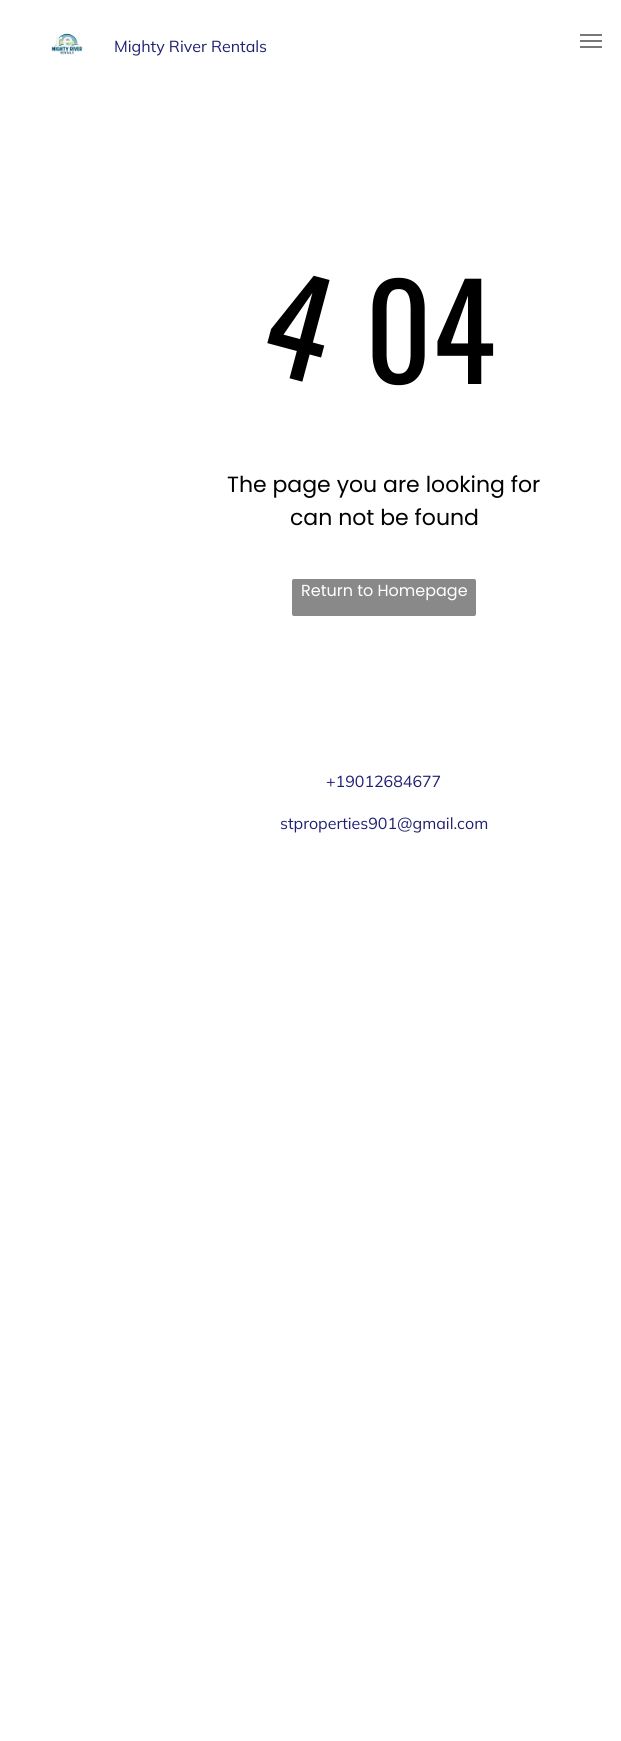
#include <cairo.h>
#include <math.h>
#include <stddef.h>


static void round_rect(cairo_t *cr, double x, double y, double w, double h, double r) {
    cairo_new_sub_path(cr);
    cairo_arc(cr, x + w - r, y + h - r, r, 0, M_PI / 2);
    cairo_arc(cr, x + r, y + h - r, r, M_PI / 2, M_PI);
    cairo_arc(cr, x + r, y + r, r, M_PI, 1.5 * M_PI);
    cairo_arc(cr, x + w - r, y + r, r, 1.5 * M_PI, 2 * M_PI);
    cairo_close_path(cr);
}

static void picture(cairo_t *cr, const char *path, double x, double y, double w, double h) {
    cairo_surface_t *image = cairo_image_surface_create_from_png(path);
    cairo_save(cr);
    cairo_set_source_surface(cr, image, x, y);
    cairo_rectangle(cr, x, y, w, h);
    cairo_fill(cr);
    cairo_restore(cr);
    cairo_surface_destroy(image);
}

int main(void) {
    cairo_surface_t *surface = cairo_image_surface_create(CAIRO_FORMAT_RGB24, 621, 1741);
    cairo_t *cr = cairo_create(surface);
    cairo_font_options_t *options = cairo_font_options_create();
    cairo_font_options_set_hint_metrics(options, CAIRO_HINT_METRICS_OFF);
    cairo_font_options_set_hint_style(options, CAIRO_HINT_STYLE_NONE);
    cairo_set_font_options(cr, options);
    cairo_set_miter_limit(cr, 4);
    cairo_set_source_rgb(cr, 1, 1, 1);
    cairo_paint(cr);
    picture(cr, "img1.png", 51, 33, 32, 22);
    cairo_select_font_face(cr, "Liberation Sans", CAIRO_FONT_SLANT_NORMAL, CAIRO_FONT_WEIGHT_BOLD);
    cairo_set_font_size(cr, 19);
    cairo_set_source_rgb(cr, 0.933, 0.957, 0.953);
    cairo_move_to(cr, 55, 47);
    cairo_show_text(cr, "re");
    cairo_select_font_face(cr, "Mulish", CAIRO_FONT_SLANT_NORMAL, CAIRO_FONT_WEIGHT_NORMAL);
    cairo_set_font_size(cr, 16);
    cairo_set_source_rgb(cr, 0.125, 0.125, 0.451);
    cairo_move_to(cr, 114, 52);
    cairo_show_text(cr, "Mighty River Rentals");
    cairo_set_source_rgb(cr, 0.471, 0.471, 0.471);
    cairo_rectangle(cr, 580, 34, 22, 2);
    cairo_fill(cr);
    cairo_rectangle(cr, 580, 40, 22, 2);
    cairo_fill(cr);
    cairo_rectangle(cr, 580, 46, 22, 2);
    cairo_fill(cr);
    cairo_select_font_face(cr, "Oswald", CAIRO_FONT_SLANT_NORMAL, CAIRO_FONT_WEIGHT_NORMAL);
    cairo_set_font_size(cr, 130);
    cairo_set_source_rgb(cr, 0, 0, 0);
    cairo_save(cr);
    cairo_translate(cr, 255, 369);
    cairo_rotate(cr, 15 * M_PI / 180);
    cairo_move_to(cr, 0, 0);
    cairo_show_text(cr, "4");
    cairo_restore(cr);
    cairo_move_to(cr, 365, 384);
    cairo_show_text(cr, "04");
    cairo_select_font_face(cr, "Poppins", CAIRO_FONT_SLANT_NORMAL, CAIRO_FONT_WEIGHT_NORMAL);
    cairo_set_font_size(cr, 22);
    cairo_move_to(cr, 227, 492);
    cairo_show_text(cr, "The page you are looking for");
    cairo_move_to(cr, 290, 525);
    cairo_show_text(cr, "can not be found");
    cairo_set_source_rgb(cr, 0.537, 0.537, 0.537);
    round_rect(cr, 292, 579, 184, 37, 2);
    cairo_fill(cr);
    cairo_set_font_size(cr, 16);
    cairo_set_source_rgb(cr, 1, 1, 1);
    cairo_move_to(cr, 301, 596);
    cairo_show_text(cr, "Return to Homepage");
    cairo_select_font_face(cr, "Mulish", CAIRO_FONT_SLANT_NORMAL, CAIRO_FONT_WEIGHT_NORMAL);
    cairo_set_source_rgb(cr, 0.125, 0.125, 0.451);
    cairo_move_to(cr, 326, 787);
    cairo_show_text(cr, "+19012684677");
    cairo_move_to(cr, 280, 829);
    cairo_show_text(cr, "stproperties901@gmail.com");
    cairo_surface_write_to_png(surface, "page.png");
    cairo_font_options_destroy(options);
    cairo_destroy(cr);
    cairo_surface_destroy(surface);
    return 0;
}
